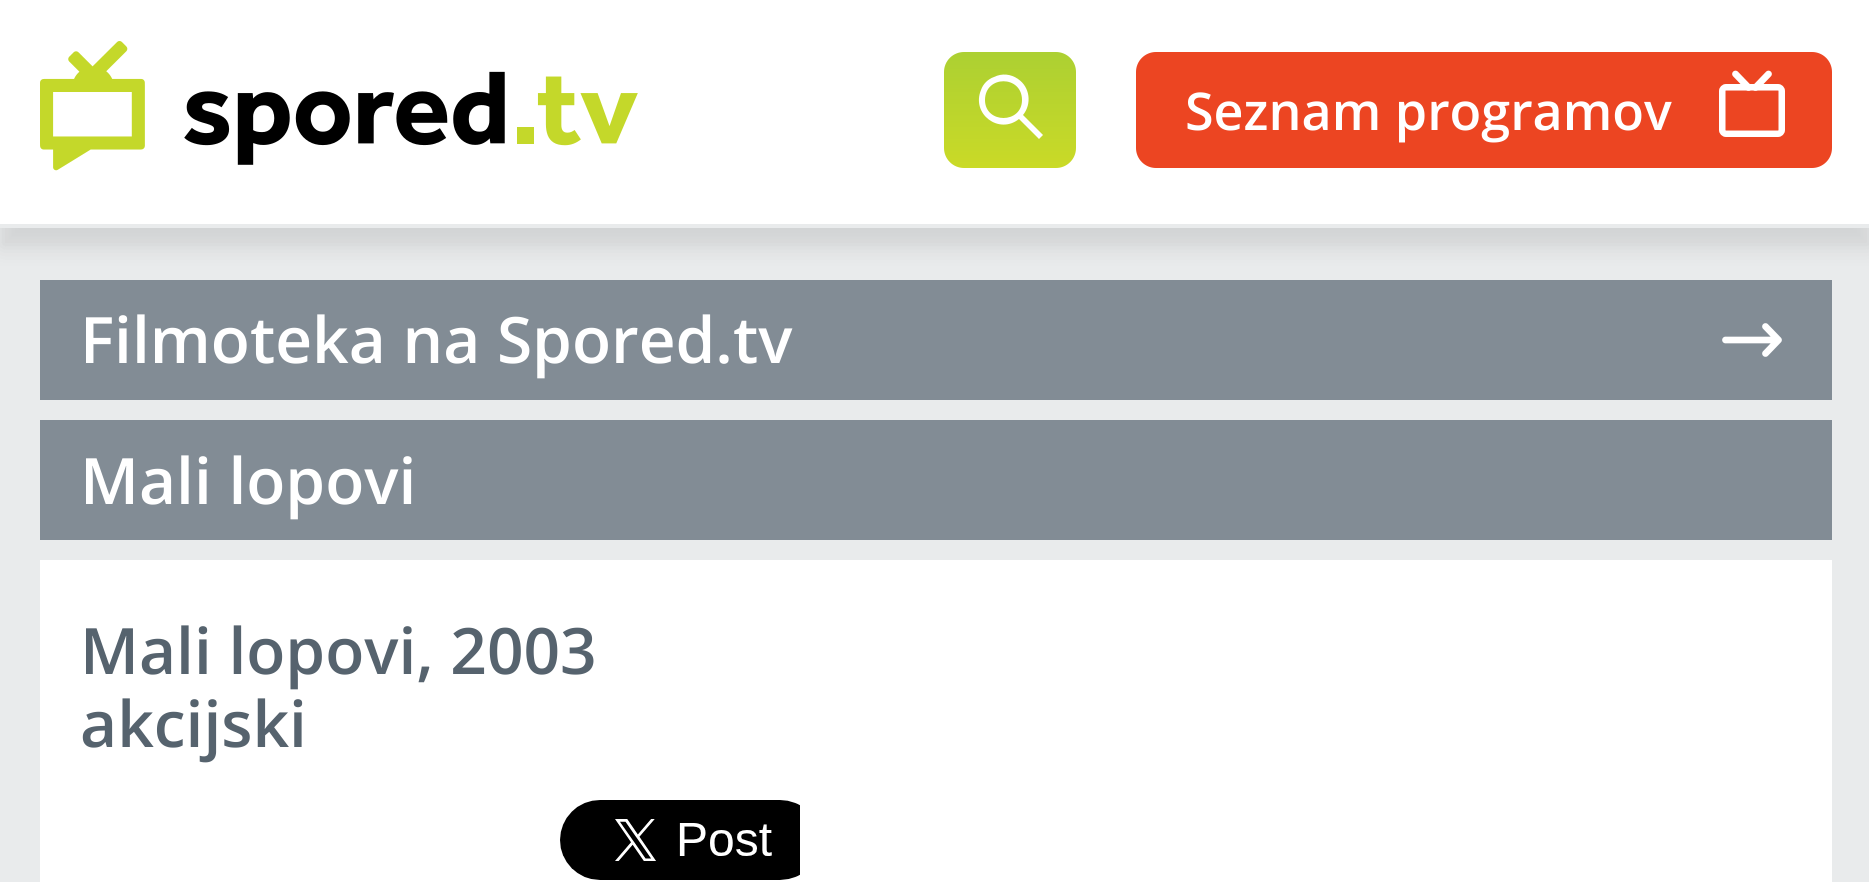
#include <cairo.h>
#include <math.h>
#include <stddef.h>


static void round_rect(cairo_t *cr, double x, double y, double w, double h, double r) {
    cairo_new_sub_path(cr);
    cairo_arc(cr, x + w - r, y + h - r, r, 0, M_PI / 2);
    cairo_arc(cr, x + r, y + h - r, r, M_PI / 2, M_PI);
    cairo_arc(cr, x + r, y + r, r, M_PI, 1.5 * M_PI);
    cairo_arc(cr, x + w - r, y + r, r, 1.5 * M_PI, 2 * M_PI);
    cairo_close_path(cr);
}

static void shadow(cairo_t *cr, double x, double y, double w, double h, double r, double blur, double alpha) {
    cairo_push_group_with_content(cr, CAIRO_CONTENT_ALPHA);
    cairo_set_operator(cr, CAIRO_OPERATOR_SOURCE);
    for (int i = 15; i >= -15 && fmin(w, h) + blur * i / 3 > 0; i -= 2) {
        double e = blur * i / 6;
        cairo_set_source_rgba(cr, 0, 0, 0, alpha * erfc((i - 1) / 8.5) / 2);
        round_rect(cr, x - e, y - e, w + 2 * e, h + 2 * e, fmax(0, fmin(r + e + blur * .6, fmin(w, h) / 2 + e)));
        cairo_fill(cr);
    }
    cairo_pattern_t *soft = cairo_pop_group(cr);
    cairo_mask(cr, soft);
    cairo_pattern_destroy(soft);
}

static void picture(cairo_t *cr, const char *path, double x, double y, double w, double h) {
    cairo_surface_t *image = cairo_image_surface_create_from_png(path);
    cairo_save(cr);
    cairo_set_source_surface(cr, image, x, y);
    cairo_rectangle(cr, x, y, w, h);
    cairo_fill(cr);
    cairo_restore(cr);
    cairo_surface_destroy(image);
}

int main(void) {
    cairo_surface_t *surface = cairo_image_surface_create(CAIRO_FORMAT_RGB24, 1869, 882);
    cairo_t *cr = cairo_create(surface);
    cairo_font_options_t *options = cairo_font_options_create();
    cairo_font_options_set_hint_metrics(options, CAIRO_HINT_METRICS_OFF);
    cairo_font_options_set_hint_style(options, CAIRO_HINT_STYLE_NONE);
    cairo_set_font_options(cr, options);
    cairo_set_miter_limit(cr, 4);
    cairo_pattern_t *gradient;
    cairo_set_source_rgb(cr, 0.914, 0.918, 0.922);
    cairo_paint(cr);
    cairo_set_source_rgb(cr, 0, 0, 0);
    shadow(cr, 0, 20, 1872, 228, 0, 10, 0.1);
    cairo_set_source_rgb(cr, 1, 1, 1);
    cairo_rectangle(cr, 0, 0, 1869, 224);
    cairo_fill(cr);
    cairo_set_source_rgb(cr, 0.914, 0.918, 0.922);
    cairo_rectangle(cr, 0, 224, 1869, 4);
    cairo_fill(cr);
    picture(cr, "img1.png", 40, 41, 598, 130);
    gradient = cairo_pattern_create_linear(1010, 52, 1010, 168);
    cairo_pattern_add_color_stop_rgba(gradient, 0, 0.675, 0.816, 0.196, 1);
    cairo_pattern_add_color_stop_rgba(gradient, 1, 0.792, 0.855, 0.153, 1);
    cairo_set_source(cr, gradient);
    cairo_pattern_destroy(gradient);
    round_rect(cr, 944, 52, 132, 116, 20);
    cairo_fill(cr);
    cairo_set_source_rgb(cr, 1, 1, 1);
    cairo_set_fill_rule(cr, CAIRO_FILL_RULE_EVEN_ODD);
    cairo_new_path(cr);
    cairo_move_to(cr, 1022, 100);
    cairo_curve_to(cr, 1022, 124, 985, 124, 985, 100);
    cairo_curve_to(cr, 985, 75, 1022, 75, 1022, 100);
    cairo_close_path(cr);
    cairo_move_to(cr, 1019, 119);
    cairo_curve_to(cr, 999, 135, 971, 114, 981, 90);
    cairo_curve_to(cr, 983, 84, 988, 79, 994, 77);
    cairo_curve_to(cr, 1002, 73, 1011, 74, 1018, 79);
    cairo_curve_to(cr, 1030, 87, 1032, 104, 1023, 115);
    cairo_line_to(cr, 1043, 135);
    cairo_line_to(cr, 1039, 139);
    cairo_close_path(cr);
    cairo_fill(cr);
    cairo_set_source_rgb(cr, 0.925, 0.271, 0.133);
    round_rect(cr, 1136, 52, 696, 116, 20);
    cairo_fill(cr);
    round_rect(cr, 1722.25, 87.25, 59.5, 46.5, 3.75);
    cairo_set_source_rgb(cr, 1, 1, 1);
    cairo_set_line_width(cr, 6.5);
    cairo_stroke(cr);
    cairo_new_path(cr);
    cairo_move_to(cr, 1755.5, 87.5);
    cairo_line_to(cr, 1768.5, 74);
    cairo_move_to(cr, 1748.5, 87.5);
    cairo_line_to(cr, 1735.5, 74);
    cairo_set_line_width(cr, 6.7);
    cairo_set_line_cap(cr, CAIRO_LINE_CAP_ROUND);
    cairo_set_line_join(cr, CAIRO_LINE_JOIN_ROUND);
    cairo_stroke(cr);
    cairo_select_font_face(cr, "Open Sans SemiBold", CAIRO_FONT_SLANT_NORMAL, CAIRO_FONT_WEIGHT_NORMAL);
    cairo_set_font_size(cr, 52);
    cairo_move_to(cr, 1185, 130);
    cairo_show_text(cr, "Seznam programov");
    cairo_set_source_rgb(cr, 0.51, 0.549, 0.584);
    cairo_rectangle(cr, 40, 280, 1792, 120);
    cairo_fill(cr);
    cairo_set_font_size(cr, 64);
    cairo_set_source_rgb(cr, 1, 1, 1);
    cairo_move_to(cr, 80, 363);
    cairo_show_text(cr, "Filmoteka na Spored.tv");
    cairo_new_path(cr);
    cairo_move_to(cr, 1725.5, 340);
    cairo_line_to(cr, 1778.5, 340);
    cairo_move_to(cr, 1778.5, 340);
    cairo_line_to(cr, 1765.5, 326.5);
    cairo_move_to(cr, 1778.5, 340);
    cairo_line_to(cr, 1765.5, 353.5);
    cairo_stroke(cr);
    cairo_set_source_rgb(cr, 0.51, 0.549, 0.584);
    cairo_rectangle(cr, 40, 420, 1792, 120);
    cairo_fill(cr);
    cairo_set_source_rgb(cr, 1, 1, 1);
    cairo_move_to(cr, 80, 504);
    cairo_show_text(cr, "Mali lopovi");
    cairo_rectangle(cr, 40, 560, 1792, 322);
    cairo_fill(cr);
    cairo_set_source_rgb(cr, 0.337, 0.388, 0.431);
    cairo_move_to(cr, 80, 674);
    cairo_show_text(cr, "Mali lopovi, 2003");
    cairo_move_to(cr, 80, 747);
    cairo_show_text(cr, "akcijski");
    picture(cr, "img2.png", 560, 800, 240, 80);
    cairo_surface_write_to_png(surface, "page.png");
    cairo_font_options_destroy(options);
    cairo_destroy(cr);
    cairo_surface_destroy(surface);
    return 0;
}
